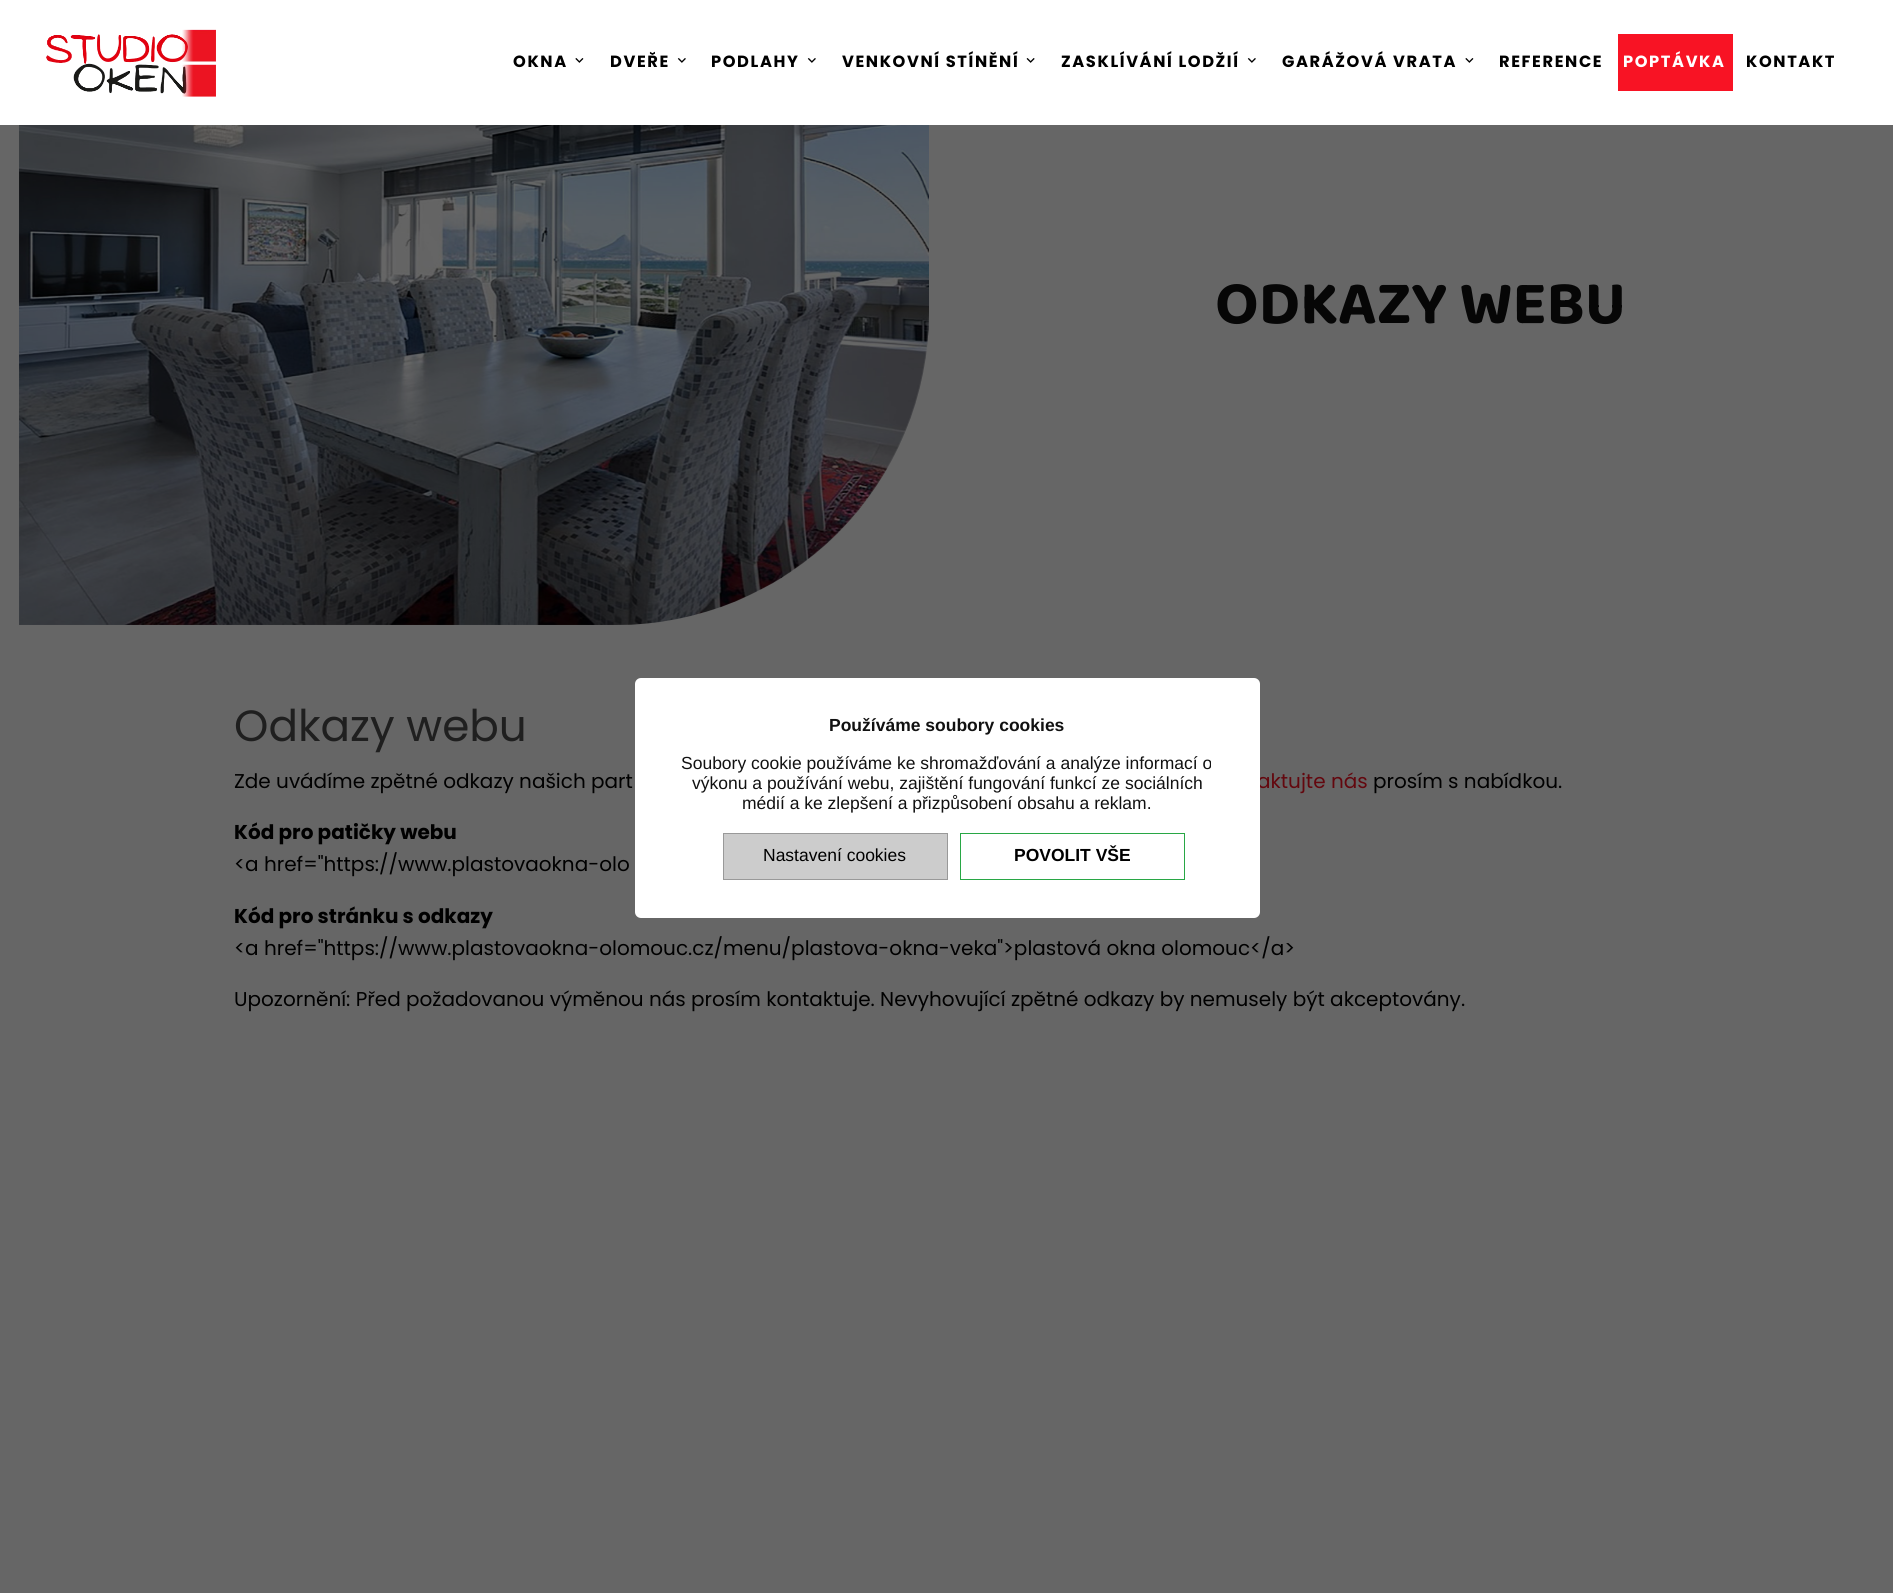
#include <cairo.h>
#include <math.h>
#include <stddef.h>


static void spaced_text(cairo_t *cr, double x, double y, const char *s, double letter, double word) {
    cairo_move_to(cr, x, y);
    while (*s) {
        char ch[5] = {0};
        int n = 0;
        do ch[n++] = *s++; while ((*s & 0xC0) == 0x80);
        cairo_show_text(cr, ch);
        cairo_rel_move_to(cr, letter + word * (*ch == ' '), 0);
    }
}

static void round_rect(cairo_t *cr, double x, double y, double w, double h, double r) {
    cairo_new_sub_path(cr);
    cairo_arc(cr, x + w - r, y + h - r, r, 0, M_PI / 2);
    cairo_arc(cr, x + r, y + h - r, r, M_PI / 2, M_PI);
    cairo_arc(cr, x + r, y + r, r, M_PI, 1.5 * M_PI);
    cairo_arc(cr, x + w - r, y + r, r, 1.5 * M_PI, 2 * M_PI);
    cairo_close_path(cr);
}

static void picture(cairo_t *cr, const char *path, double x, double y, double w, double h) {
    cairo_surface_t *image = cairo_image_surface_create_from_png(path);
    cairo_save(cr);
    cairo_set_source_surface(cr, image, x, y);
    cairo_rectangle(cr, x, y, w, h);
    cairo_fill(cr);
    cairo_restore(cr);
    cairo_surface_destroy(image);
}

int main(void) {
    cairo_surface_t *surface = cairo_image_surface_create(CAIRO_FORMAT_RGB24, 1893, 1593);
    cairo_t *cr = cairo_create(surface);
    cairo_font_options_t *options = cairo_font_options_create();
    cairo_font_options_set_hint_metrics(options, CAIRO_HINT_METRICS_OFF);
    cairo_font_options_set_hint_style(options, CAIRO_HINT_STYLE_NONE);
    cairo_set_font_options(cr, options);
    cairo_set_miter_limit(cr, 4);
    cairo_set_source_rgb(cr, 0.4, 0.4, 0.4);
    cairo_paint(cr);
    cairo_set_source_rgb(cr, 1, 1, 1);
    cairo_rectangle(cr, 0, 0, 1893, 125);
    cairo_fill(cr);
    picture(cr, "img1.png", 46, 29, 170, 68);
    cairo_select_font_face(cr, "Poppins", CAIRO_FONT_SLANT_NORMAL, CAIRO_FONT_WEIGHT_BOLD);
    cairo_set_font_size(cr, 16.25);
    cairo_set_source_rgb(cr, 0, 0, 0);
    spaced_text(cr, 513, 67, "OKNA", 1.6, 0);
    picture(cr, "img2.png", 575, 58, 9, 5);
    spaced_text(cr, 610, 67, "DVEŘE", 1.6, 0);
    picture(cr, "img3.png", 677, 58, 9, 5);
    spaced_text(cr, 711, 67, "PODLAHY", 1.6, 0);
    picture(cr, "img3.png", 807, 58, 9, 5);
    spaced_text(cr, 842, 67, "VENKOVNÍ STÍNĚNÍ", 1.6, 0);
    picture(cr, "img4.png", 1026, 58, 9, 5);
    spaced_text(cr, 1061, 67, "ZASKLÍVÁNÍ LODŽIÍ", 1.6, 0);
    picture(cr, "img3.png", 1247, 58, 9, 5);
    spaced_text(cr, 1282, 67, "GARÁŽOVÁ VRATA", 1.6, 0);
    picture(cr, "img2.png", 1465, 58, 9, 5);
    spaced_text(cr, 1499, 67, "REFERENCE", 1.6, 0);
    cairo_set_source_rgb(cr, 0.969, 0.078, 0.141);
    cairo_rectangle(cr, 1618, 34, 115, 57);
    cairo_fill(cr);
    cairo_set_source_rgb(cr, 1, 1, 1);
    spaced_text(cr, 1623, 67, "POPTÁVKA", 1.6, 0);
    cairo_set_source_rgb(cr, 0, 0, 0);
    spaced_text(cr, 1746, 67, "KONTAKT", 1.6, 0);
    picture(cr, "img5.png", 19, 125, 910, 500);
    cairo_select_font_face(cr, "Baloo Da 2", CAIRO_FONT_SLANT_NORMAL, CAIRO_FONT_WEIGHT_BOLD);
    cairo_set_font_size(cr, 62.5);
    cairo_set_source_rgb(cr, 0.027, 0.027, 0.027);
    cairo_move_to(cr, 1215, 323);
    cairo_show_text(cr, "ODKAZY WEBU");
    cairo_select_font_face(cr, "Poppins", CAIRO_FONT_SLANT_NORMAL, CAIRO_FONT_WEIGHT_NORMAL);
    cairo_set_font_size(cr, 43.75);
    cairo_set_source_rgb(cr, 0.122, 0.122, 0.122);
    cairo_move_to(cr, 234, 741);
    cairo_show_text(cr, "Odkazy webu");
    cairo_set_font_size(cr, 20);
    cairo_set_source_rgb(cr, 0, 0, 0);
    cairo_move_to(cr, 234, 788);
    cairo_show_text(cr, "Zde uvádíme zpětné odkazy našich part");
    cairo_set_source_rgb(cr, 0.388, 0.031, 0.055);
    cairo_move_to(cr, 1257, 788);
    cairo_show_text(cr, "aktujte nás");
    cairo_set_source_rgb(cr, 0, 0, 0);
    cairo_move_to(cr, 1373, 788);
    cairo_show_text(cr, "prosím s nabídkou.");
    cairo_select_font_face(cr, "Poppins", CAIRO_FONT_SLANT_NORMAL, CAIRO_FONT_WEIGHT_BOLD);
    cairo_move_to(cr, 234, 839);
    cairo_show_text(cr, "Kód pro patičky webu");
    cairo_select_font_face(cr, "Poppins", CAIRO_FONT_SLANT_NORMAL, CAIRO_FONT_WEIGHT_NORMAL);
    cairo_move_to(cr, 234, 871);
    cairo_show_text(cr, "<a href=\"https://www.plastovaokna-olo");
    cairo_select_font_face(cr, "Poppins", CAIRO_FONT_SLANT_NORMAL, CAIRO_FONT_WEIGHT_BOLD);
    cairo_move_to(cr, 234, 923);
    cairo_show_text(cr, "Kód pro stránku s odkazy");
    cairo_select_font_face(cr, "Poppins", CAIRO_FONT_SLANT_NORMAL, CAIRO_FONT_WEIGHT_NORMAL);
    cairo_move_to(cr, 234, 955);
    cairo_show_text(cr, "<a href=\"https://www.plastovaokna-olomouc.cz/menu/plastova-okna-veka\">plastová okna olomouc</a>");
    cairo_move_to(cr, 234, 1006);
    cairo_show_text(cr, "Upozornění: Před požadovanou výměnou nás prosím kontaktuje. Nevyhovující zpětné odkazy by nemusely být akceptovány.");
    cairo_set_source_rgb(cr, 1, 1, 1);
    round_rect(cr, 635, 678, 625, 240, 6);
    cairo_fill(cr);
    cairo_select_font_face(cr, "Liberation Sans", CAIRO_FONT_SLANT_NORMAL, CAIRO_FONT_WEIGHT_BOLD);
    cairo_set_font_size(cr, 17.5);
    cairo_set_source_rgb(cr, 0.067, 0.067, 0.067);
    cairo_move_to(cr, 829, 731);
    cairo_show_text(cr, "Používáme soubory cookies");
    cairo_select_font_face(cr, "Liberation Sans", CAIRO_FONT_SLANT_NORMAL, CAIRO_FONT_WEIGHT_NORMAL);
    cairo_move_to(cr, 681, 769);
    cairo_show_text(cr, "Soubory cookie používáme ke shromažďování a analýze informací o");
    cairo_move_to(cr, 692, 789);
    cairo_show_text(cr, "výkonu a používání webu, zajištění fungování funkcí ze sociálních");
    cairo_move_to(cr, 742, 809);
    cairo_show_text(cr, "médií a ke zlepšení a přizpůsobení obsahu a reklam.");
    cairo_set_source_rgb(cr, 0.8, 0.8, 0.8);
    cairo_rectangle(cr, 723.5, 833.5, 224, 46);
    cairo_fill_preserve(cr);
    cairo_set_source_rgb(cr, 0.6, 0.6, 0.6);
    cairo_set_line_width(cr, 1);
    cairo_stroke(cr);
    cairo_set_source_rgb(cr, 0, 0, 0);
    cairo_move_to(cr, 763, 861);
    cairo_show_text(cr, "Nastavení cookies");
    cairo_rectangle(cr, 960.5, 833.5, 224, 46);
    cairo_set_source_rgb(cr, 0.157, 0.655, 0.271);
    cairo_stroke(cr);
    cairo_select_font_face(cr, "Liberation Sans", CAIRO_FONT_SLANT_NORMAL, CAIRO_FONT_WEIGHT_BOLD);
    cairo_set_source_rgb(cr, 0, 0, 0);
    cairo_move_to(cr, 1014, 861);
    cairo_show_text(cr, "POVOLIT VŠE");
    cairo_surface_write_to_png(surface, "page.png");
    cairo_font_options_destroy(options);
    cairo_destroy(cr);
    cairo_surface_destroy(surface);
    return 0;
}
